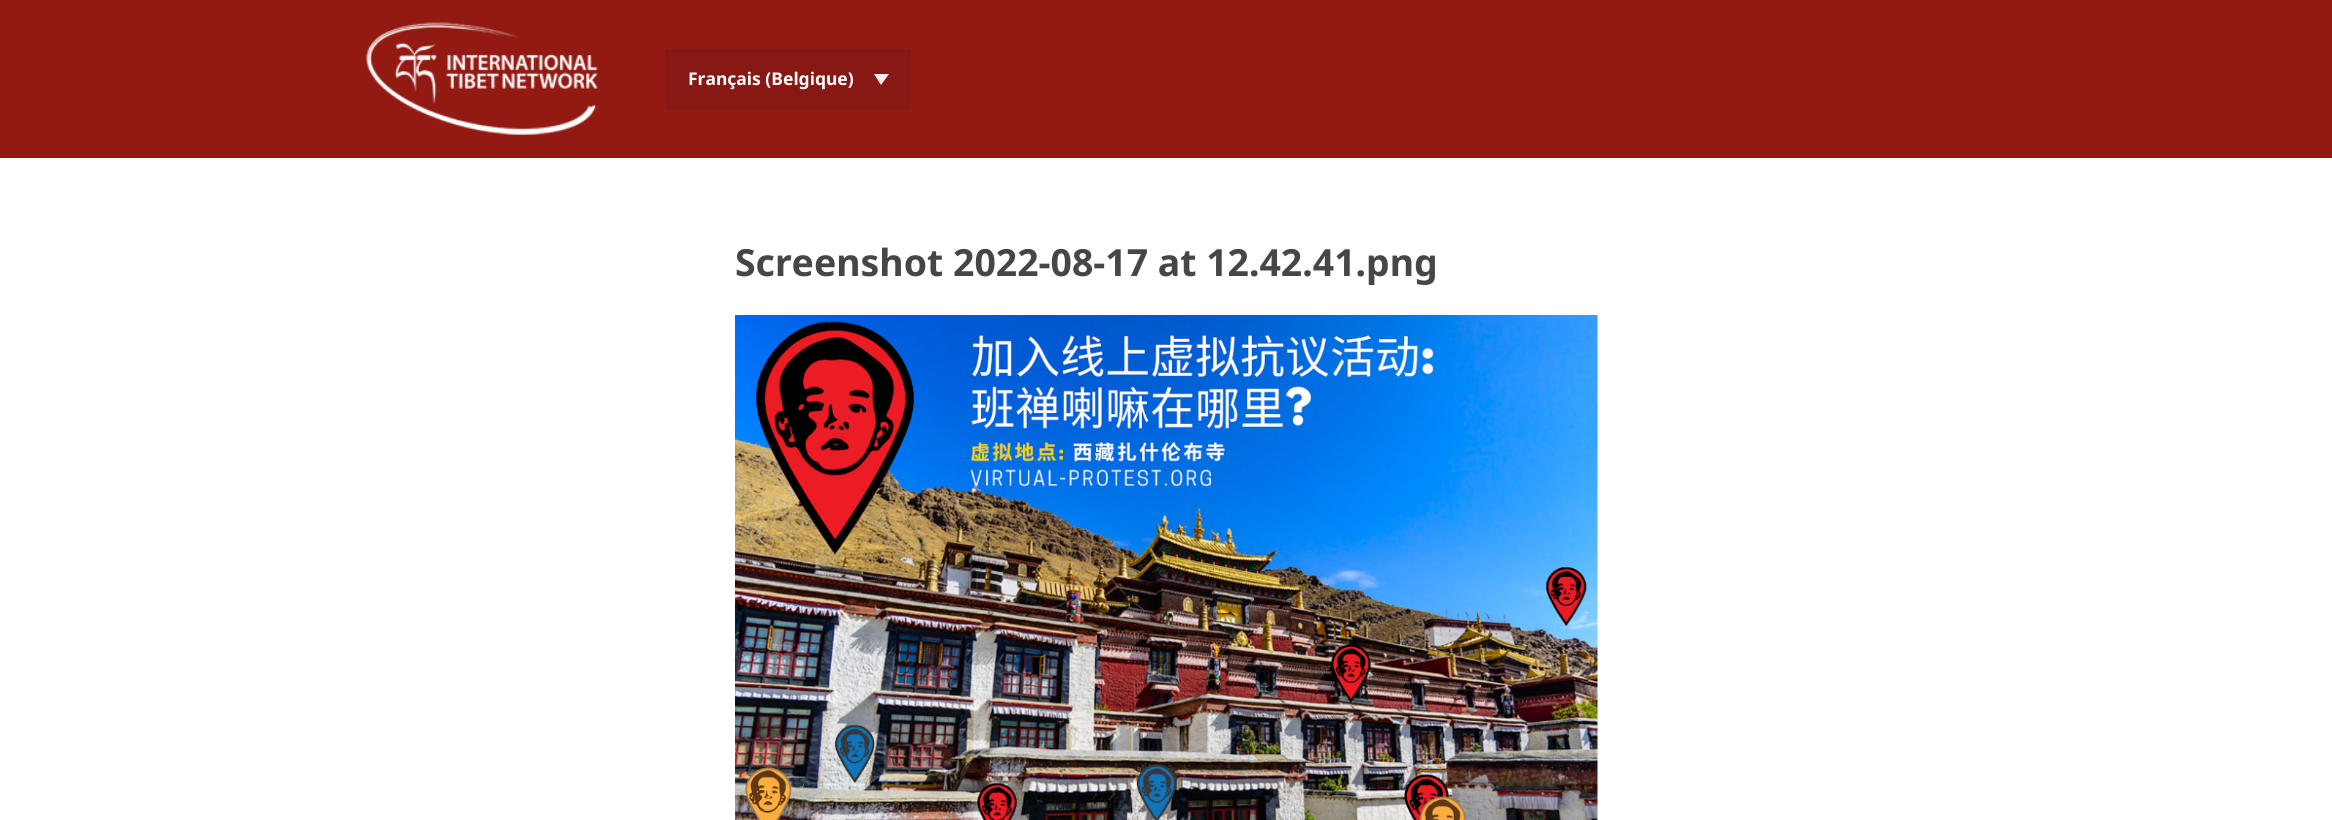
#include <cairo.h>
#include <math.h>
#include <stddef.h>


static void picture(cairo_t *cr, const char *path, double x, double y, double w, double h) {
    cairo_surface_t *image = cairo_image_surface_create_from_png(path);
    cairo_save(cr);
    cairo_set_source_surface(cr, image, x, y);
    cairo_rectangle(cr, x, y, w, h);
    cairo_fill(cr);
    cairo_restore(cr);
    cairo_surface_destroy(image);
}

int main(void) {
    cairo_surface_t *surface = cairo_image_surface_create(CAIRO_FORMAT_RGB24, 2332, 820);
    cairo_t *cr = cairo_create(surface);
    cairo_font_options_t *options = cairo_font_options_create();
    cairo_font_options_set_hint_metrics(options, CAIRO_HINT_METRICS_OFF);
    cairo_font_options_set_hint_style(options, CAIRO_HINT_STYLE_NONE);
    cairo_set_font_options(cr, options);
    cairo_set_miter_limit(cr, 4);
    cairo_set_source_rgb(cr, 1, 1, 1);
    cairo_paint(cr);
    cairo_set_source_rgb(cr, 0.573, 0.102, 0.078);
    cairo_rectangle(cr, 0, 0, 2332, 158);
    cairo_fill(cr);
    picture(cr, "img1.png", 366, 22, 232, 113);
    cairo_set_source_rgb(cr, 0.533, 0.094, 0.075);
    cairo_rectangle(cr, 665, 49, 246, 60);
    cairo_fill(cr);
    cairo_select_font_face(cr, "Noto Sans", CAIRO_FONT_SLANT_NORMAL, CAIRO_FONT_WEIGHT_BOLD);
    cairo_set_font_size(cr, 17.5);
    cairo_set_source_rgb(cr, 1, 1, 1);
    cairo_move_to(cr, 688, 85);
    cairo_show_text(cr, "Français (Belgique)");
    cairo_set_source_rgb(cr, 0.937, 0.937, 0.937);
    cairo_new_path(cr);
    cairo_move_to(cr, 874, 74);
    cairo_line_to(cr, 889, 74);
    cairo_line_to(cr, 881, 85);
    cairo_close_path(cr);
    cairo_fill(cr);
    cairo_set_font_size(cr, 37.4);
    cairo_set_source_rgb(cr, 0.275, 0.275, 0.275);
    cairo_move_to(cr, 735, 276);
    cairo_show_text(cr, "Screenshot 2022-08-17 at 12.42.41.png");
    picture(cr, "img2.png", 735, 315, 863, 505);
    cairo_surface_write_to_png(surface, "page.png");
    cairo_font_options_destroy(options);
    cairo_destroy(cr);
    cairo_surface_destroy(surface);
    return 0;
}
